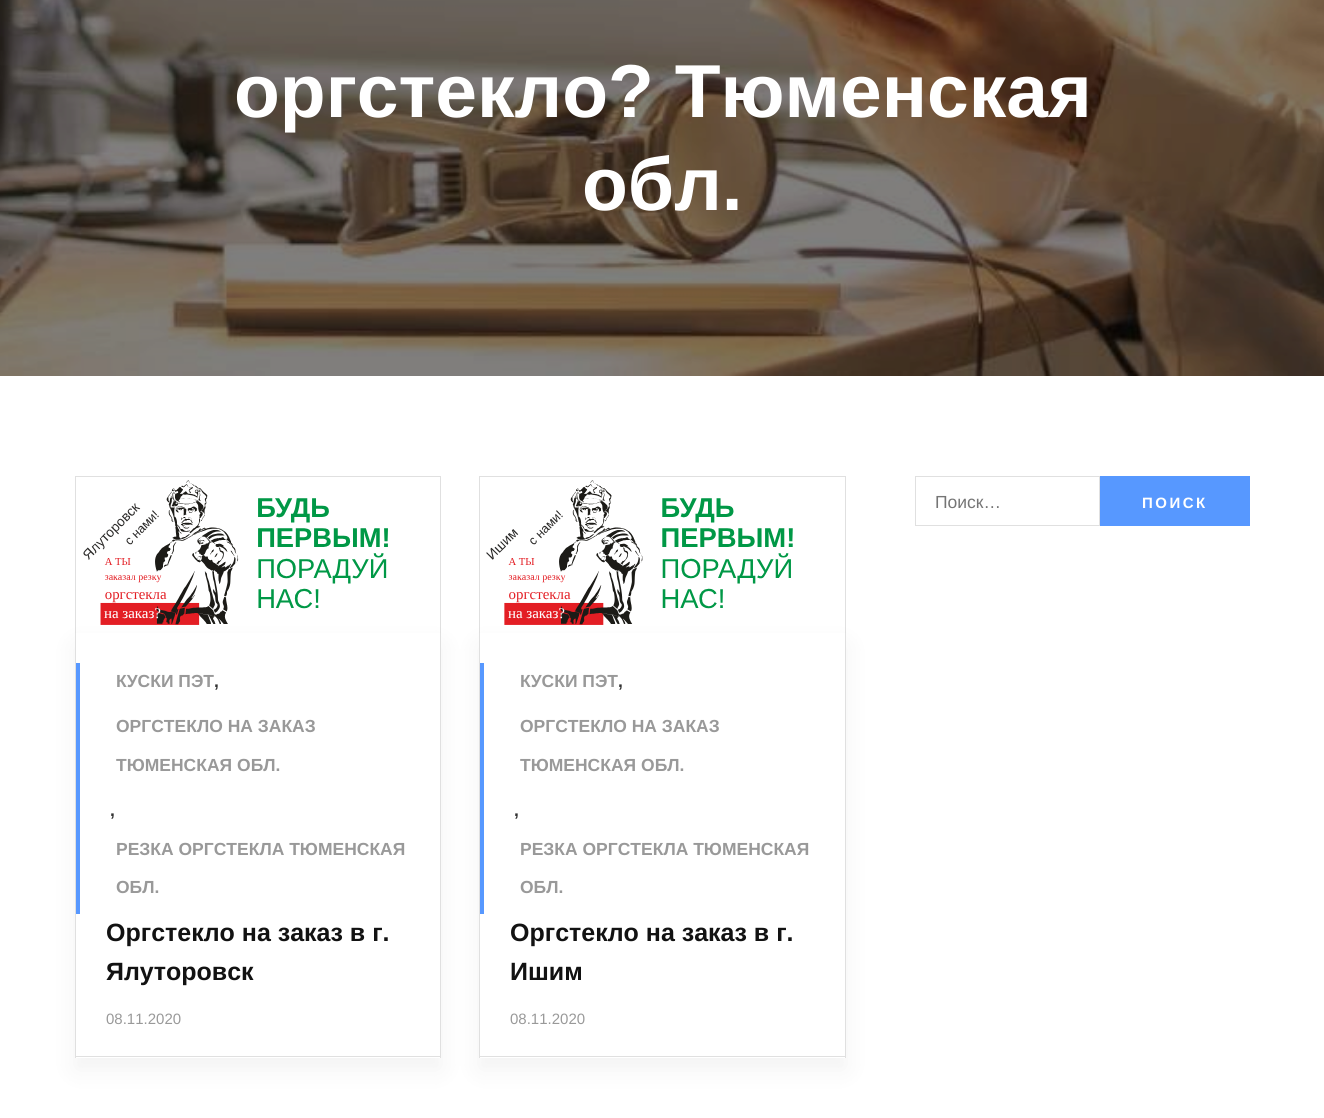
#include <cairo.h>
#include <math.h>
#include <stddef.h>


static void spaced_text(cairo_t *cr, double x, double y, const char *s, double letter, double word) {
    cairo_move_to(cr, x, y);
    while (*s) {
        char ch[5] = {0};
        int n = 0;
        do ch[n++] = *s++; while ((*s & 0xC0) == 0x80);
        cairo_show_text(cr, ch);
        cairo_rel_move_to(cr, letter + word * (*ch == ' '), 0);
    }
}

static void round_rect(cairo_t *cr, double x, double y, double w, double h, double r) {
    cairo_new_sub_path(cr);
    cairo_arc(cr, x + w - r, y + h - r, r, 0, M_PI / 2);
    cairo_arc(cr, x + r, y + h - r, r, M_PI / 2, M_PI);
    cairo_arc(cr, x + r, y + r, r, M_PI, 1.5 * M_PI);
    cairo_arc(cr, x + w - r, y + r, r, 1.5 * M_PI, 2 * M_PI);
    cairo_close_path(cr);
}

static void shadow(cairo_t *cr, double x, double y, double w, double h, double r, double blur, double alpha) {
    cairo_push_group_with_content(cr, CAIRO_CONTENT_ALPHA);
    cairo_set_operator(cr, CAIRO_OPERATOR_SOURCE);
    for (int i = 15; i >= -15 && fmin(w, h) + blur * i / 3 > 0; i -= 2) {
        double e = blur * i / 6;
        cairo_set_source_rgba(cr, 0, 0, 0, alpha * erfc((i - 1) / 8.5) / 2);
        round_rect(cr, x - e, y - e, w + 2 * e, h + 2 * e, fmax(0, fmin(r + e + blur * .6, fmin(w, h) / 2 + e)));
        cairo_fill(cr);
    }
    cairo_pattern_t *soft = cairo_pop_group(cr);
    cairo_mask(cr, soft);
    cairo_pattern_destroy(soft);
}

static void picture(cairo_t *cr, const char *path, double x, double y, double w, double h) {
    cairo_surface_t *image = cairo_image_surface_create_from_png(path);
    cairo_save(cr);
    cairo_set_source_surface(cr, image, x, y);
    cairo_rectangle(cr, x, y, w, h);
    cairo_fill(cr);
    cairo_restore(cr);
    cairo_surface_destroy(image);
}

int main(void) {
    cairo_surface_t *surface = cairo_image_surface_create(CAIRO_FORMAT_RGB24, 1324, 1118);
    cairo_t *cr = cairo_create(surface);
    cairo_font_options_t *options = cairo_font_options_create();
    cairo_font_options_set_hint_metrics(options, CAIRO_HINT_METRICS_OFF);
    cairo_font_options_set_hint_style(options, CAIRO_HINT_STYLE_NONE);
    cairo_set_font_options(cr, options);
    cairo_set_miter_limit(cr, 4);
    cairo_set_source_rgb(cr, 1, 1, 1);
    cairo_paint(cr);
    picture(cr, "img1.png", 0, 0, 1324, 376);
    cairo_select_font_face(cr, "Liberation Sans", CAIRO_FONT_SLANT_NORMAL, CAIRO_FONT_WEIGHT_BOLD);
    cairo_set_font_size(cr, 75);
    cairo_set_source_rgb(cr, 1, 1, 1);
    cairo_move_to(cr, 234, 117);
    cairo_show_text(cr, "оргстекло? Тюменская");
    cairo_move_to(cr, 582, 210);
    cairo_show_text(cr, "обл.");
    cairo_rectangle(cr, 915.5, 476.5, 184, 49);
    cairo_set_source_rgb(cr, 0.878, 0.878, 0.878);
    cairo_set_line_width(cr, 1);
    cairo_stroke(cr);
    cairo_select_font_face(cr, "Liberation Sans", CAIRO_FONT_SLANT_NORMAL, CAIRO_FONT_WEIGHT_NORMAL);
    cairo_set_font_size(cr, 17.5);
    cairo_set_source_rgb(cr, 0.459, 0.459, 0.459);
    cairo_move_to(cr, 935, 508);
    cairo_show_text(cr, "Поиск…");
    cairo_set_source_rgb(cr, 0.341, 0.596, 1);
    cairo_rectangle(cr, 1100, 476, 150, 50);
    cairo_fill(cr);
    cairo_select_font_face(cr, "Liberation Sans", CAIRO_FONT_SLANT_NORMAL, CAIRO_FONT_WEIGHT_BOLD);
    cairo_set_font_size(cr, 15);
    cairo_set_source_rgb(cr, 1, 1, 1);
    spaced_text(cr, 1142, 508, "ПОИСК", 2.5, 0);
    cairo_set_source_rgb(cr, 0.878, 0.878, 0.878);
    cairo_rectangle(cr, 75, 476, 366, 1);
    cairo_fill(cr);
    cairo_rectangle(cr, 440, 476, 1, 157);
    cairo_fill(cr);
    cairo_rectangle(cr, 75, 476, 1, 157);
    cairo_fill(cr);
    cairo_save(cr);
    cairo_set_fill_rule(cr, CAIRO_FILL_RULE_EVEN_ODD);
    cairo_new_path(cr);
    cairo_move_to(cr, 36, 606);
    cairo_line_to(cr, 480, 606);
    cairo_line_to(cr, 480, 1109);
    cairo_line_to(cr, 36, 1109);
    cairo_close_path(cr);
    cairo_move_to(cr, 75, 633);
    cairo_line_to(cr, 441, 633);
    cairo_line_to(cr, 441, 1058);
    cairo_line_to(cr, 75, 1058);
    cairo_close_path(cr);
    cairo_clip(cr);
    cairo_set_source_rgb(cr, 0, 0, 0);
    shadow(cr, 75, 645, 366, 425, 0, 12.5, 0.05);
    cairo_restore(cr);
    picture(cr, "img2.png", 83, 480, 305, 145);
    cairo_rectangle(cr, 440, 633, 1, 425);
    cairo_fill(cr);
    cairo_rectangle(cr, 75, 1056, 366, 1);
    cairo_fill(cr);
    cairo_rectangle(cr, 75, 633, 1, 425);
    cairo_fill(cr);
    cairo_set_source_rgb(cr, 0.341, 0.596, 1);
    cairo_rectangle(cr, 76, 663, 4, 251);
    cairo_fill(cr);
    cairo_set_font_size(cr, 17.5);
    cairo_set_source_rgb(cr, 0.6, 0.6, 0.6);
    cairo_move_to(cr, 116, 687);
    cairo_show_text(cr, "КУСКИ ПЭТ");
    cairo_set_source_rgb(cr, 0.2, 0.2, 0.2);
    cairo_move_to(cr, 214, 687);
    cairo_show_text(cr, ",");
    cairo_set_source_rgb(cr, 0.6, 0.6, 0.6);
    cairo_move_to(cr, 116, 732);
    cairo_show_text(cr, "ОРГСТЕКЛО НА ЗАКАЗ");
    cairo_move_to(cr, 116, 771);
    cairo_show_text(cr, "ТЮМЕНСКАЯ ОБЛ.");
    cairo_set_source_rgb(cr, 0.2, 0.2, 0.2);
    cairo_move_to(cr, 110, 816);
    cairo_show_text(cr, ",");
    cairo_set_source_rgb(cr, 0.6, 0.6, 0.6);
    cairo_move_to(cr, 116, 855);
    cairo_show_text(cr, "РЕЗКА ОРГСТЕКЛА ТЮМЕНСКАЯ");
    cairo_move_to(cr, 116, 893);
    cairo_show_text(cr, "ОБЛ.");
    cairo_set_font_size(cr, 25);
    cairo_set_source_rgb(cr, 0.071, 0.071, 0.071);
    cairo_move_to(cr, 106, 941);
    cairo_show_text(cr, "Оргстекло на заказ в г.");
    cairo_move_to(cr, 106, 980);
    cairo_show_text(cr, "Ялуторовск");
    cairo_select_font_face(cr, "Liberation Sans", CAIRO_FONT_SLANT_NORMAL, CAIRO_FONT_WEIGHT_NORMAL);
    cairo_set_font_size(cr, 15);
    cairo_set_source_rgb(cr, 0.6, 0.6, 0.6);
    cairo_move_to(cr, 106, 1024);
    cairo_show_text(cr, "08.11.2020");
    cairo_set_source_rgb(cr, 0.878, 0.878, 0.878);
    cairo_rectangle(cr, 479, 476, 367, 1);
    cairo_fill(cr);
    cairo_rectangle(cr, 845, 476, 1, 157);
    cairo_fill(cr);
    cairo_rectangle(cr, 479, 476, 1, 157);
    cairo_fill(cr);
    cairo_save(cr);
    cairo_set_fill_rule(cr, CAIRO_FILL_RULE_EVEN_ODD);
    cairo_new_path(cr);
    cairo_move_to(cr, 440, 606);
    cairo_line_to(cr, 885, 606);
    cairo_line_to(cr, 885, 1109);
    cairo_line_to(cr, 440, 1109);
    cairo_close_path(cr);
    cairo_move_to(cr, 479, 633);
    cairo_line_to(cr, 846, 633);
    cairo_line_to(cr, 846, 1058);
    cairo_line_to(cr, 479, 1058);
    cairo_close_path(cr);
    cairo_clip(cr);
    cairo_set_source_rgb(cr, 0, 0, 0);
    shadow(cr, 479, 645, 367, 425, 0, 12.5, 0.05);
    cairo_restore(cr);
    picture(cr, "img3.png", 486, 480, 307, 145);
    cairo_rectangle(cr, 845, 633, 1, 425);
    cairo_fill(cr);
    cairo_rectangle(cr, 479, 1056, 367, 1);
    cairo_fill(cr);
    cairo_rectangle(cr, 479, 633, 1, 425);
    cairo_fill(cr);
    cairo_set_source_rgb(cr, 0.341, 0.596, 1);
    cairo_rectangle(cr, 480, 663, 4, 251);
    cairo_fill(cr);
    cairo_select_font_face(cr, "Liberation Sans", CAIRO_FONT_SLANT_NORMAL, CAIRO_FONT_WEIGHT_BOLD);
    cairo_set_font_size(cr, 17.5);
    cairo_set_source_rgb(cr, 0.6, 0.6, 0.6);
    cairo_move_to(cr, 520, 687);
    cairo_show_text(cr, "КУСКИ ПЭТ");
    cairo_set_source_rgb(cr, 0.2, 0.2, 0.2);
    cairo_move_to(cr, 618, 687);
    cairo_show_text(cr, ",");
    cairo_set_source_rgb(cr, 0.6, 0.6, 0.6);
    cairo_move_to(cr, 520, 732);
    cairo_show_text(cr, "ОРГСТЕКЛО НА ЗАКАЗ");
    cairo_move_to(cr, 520, 771);
    cairo_show_text(cr, "ТЮМЕНСКАЯ ОБЛ.");
    cairo_set_source_rgb(cr, 0.2, 0.2, 0.2);
    cairo_move_to(cr, 514, 816);
    cairo_show_text(cr, ",");
    cairo_set_source_rgb(cr, 0.6, 0.6, 0.6);
    cairo_move_to(cr, 520, 855);
    cairo_show_text(cr, "РЕЗКА ОРГСТЕКЛА ТЮМЕНСКАЯ");
    cairo_move_to(cr, 520, 893);
    cairo_show_text(cr, "ОБЛ.");
    cairo_set_font_size(cr, 25);
    cairo_set_source_rgb(cr, 0.071, 0.071, 0.071);
    cairo_move_to(cr, 510, 941);
    cairo_show_text(cr, "Оргстекло на заказ в г.");
    cairo_move_to(cr, 510, 980);
    cairo_show_text(cr, "Ишим");
    cairo_select_font_face(cr, "Liberation Sans", CAIRO_FONT_SLANT_NORMAL, CAIRO_FONT_WEIGHT_NORMAL);
    cairo_set_font_size(cr, 15);
    cairo_set_source_rgb(cr, 0.6, 0.6, 0.6);
    cairo_move_to(cr, 510, 1024);
    cairo_show_text(cr, "08.11.2020");
    cairo_surface_write_to_png(surface, "page.png");
    cairo_font_options_destroy(options);
    cairo_destroy(cr);
    cairo_surface_destroy(surface);
    return 0;
}
